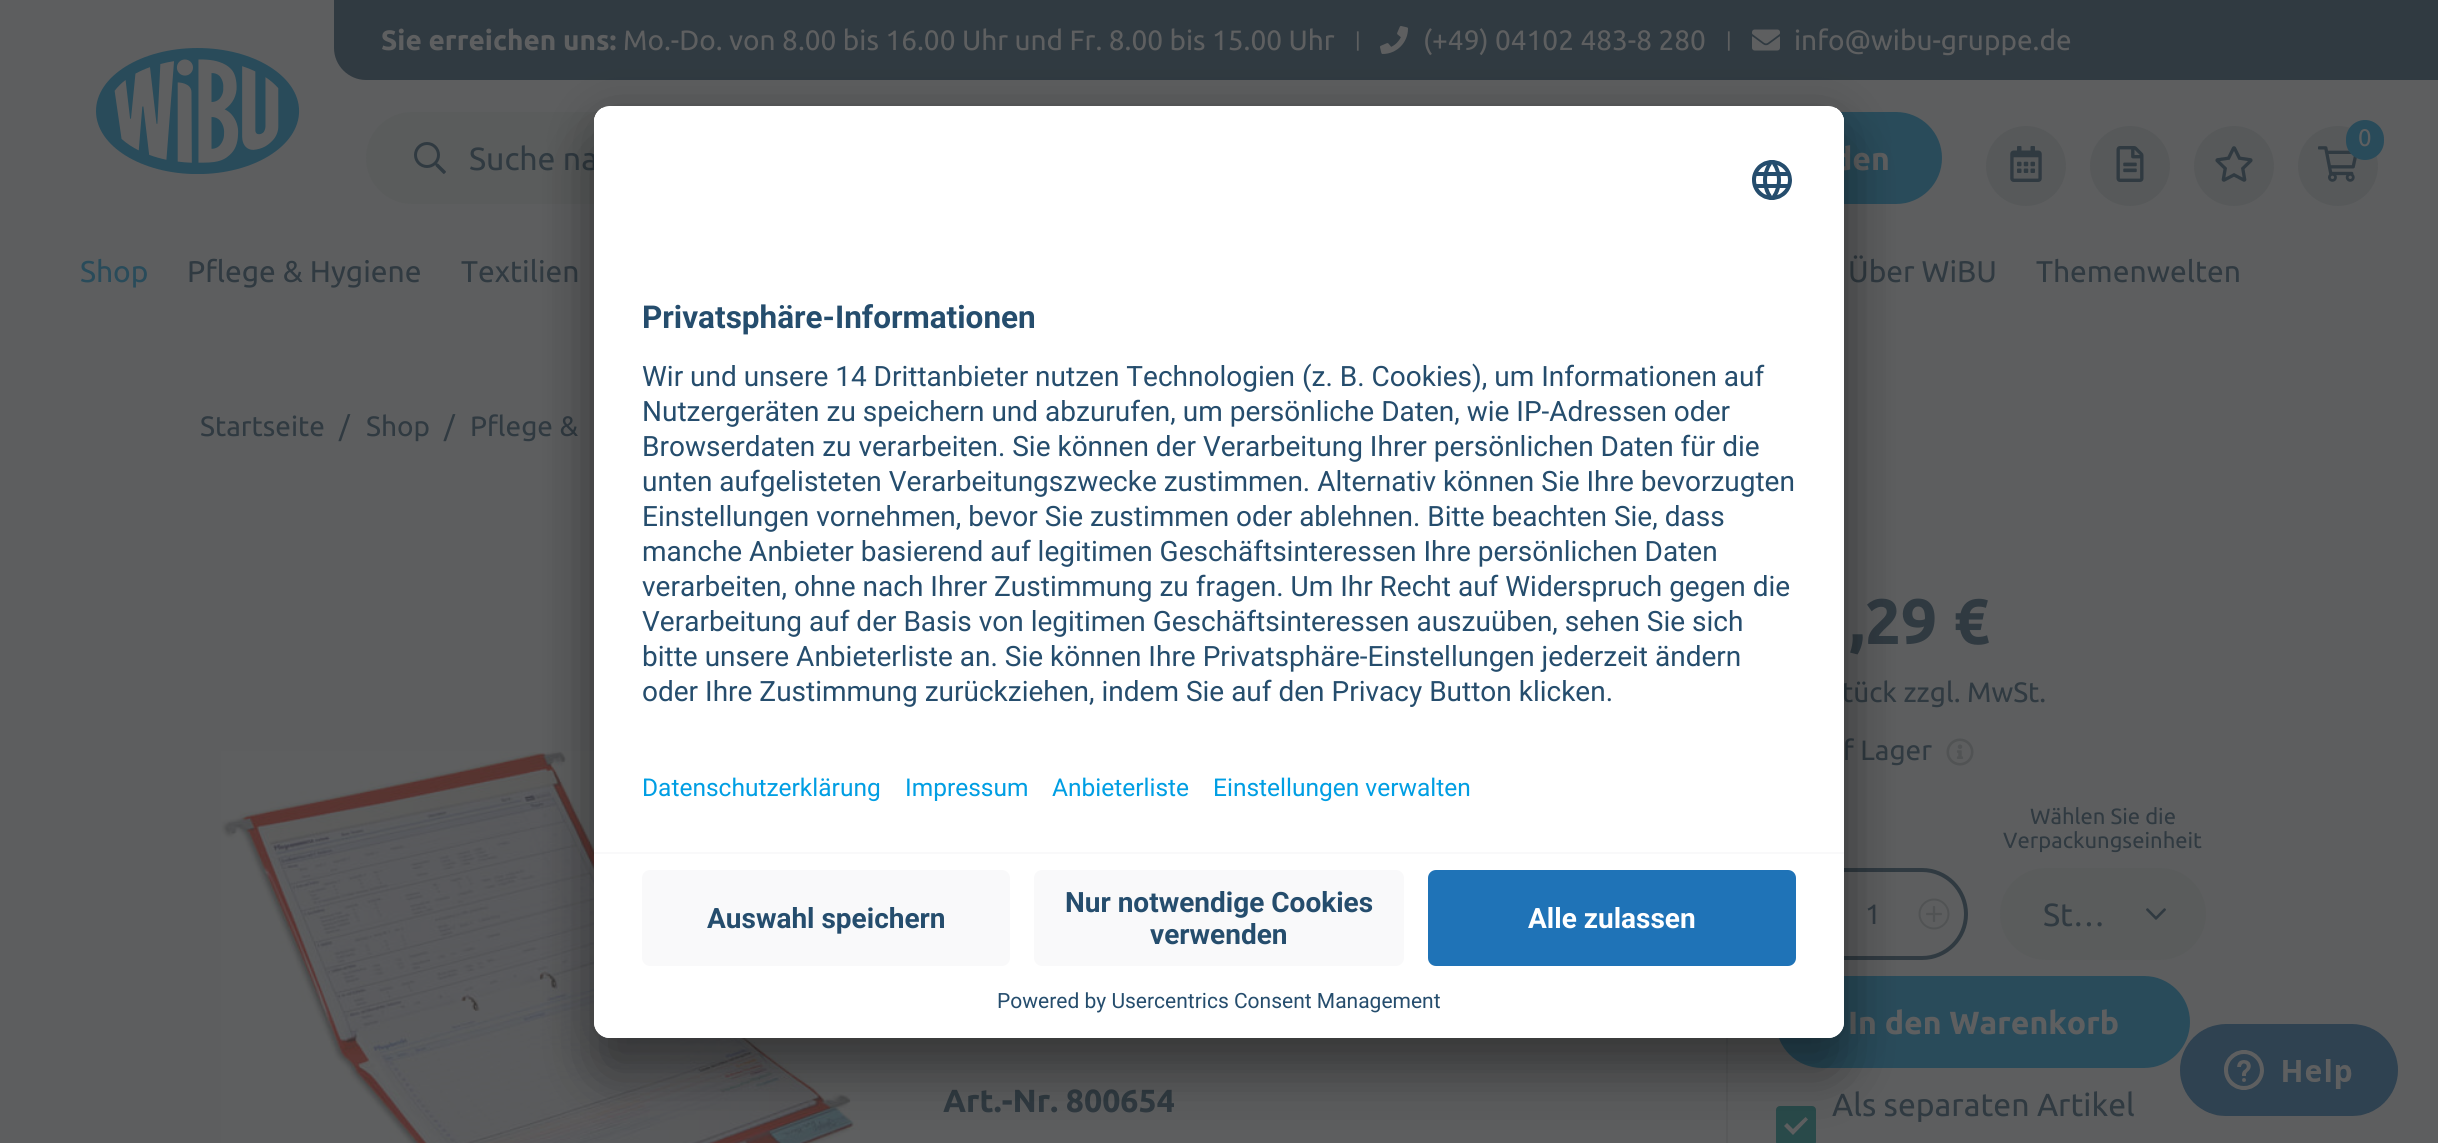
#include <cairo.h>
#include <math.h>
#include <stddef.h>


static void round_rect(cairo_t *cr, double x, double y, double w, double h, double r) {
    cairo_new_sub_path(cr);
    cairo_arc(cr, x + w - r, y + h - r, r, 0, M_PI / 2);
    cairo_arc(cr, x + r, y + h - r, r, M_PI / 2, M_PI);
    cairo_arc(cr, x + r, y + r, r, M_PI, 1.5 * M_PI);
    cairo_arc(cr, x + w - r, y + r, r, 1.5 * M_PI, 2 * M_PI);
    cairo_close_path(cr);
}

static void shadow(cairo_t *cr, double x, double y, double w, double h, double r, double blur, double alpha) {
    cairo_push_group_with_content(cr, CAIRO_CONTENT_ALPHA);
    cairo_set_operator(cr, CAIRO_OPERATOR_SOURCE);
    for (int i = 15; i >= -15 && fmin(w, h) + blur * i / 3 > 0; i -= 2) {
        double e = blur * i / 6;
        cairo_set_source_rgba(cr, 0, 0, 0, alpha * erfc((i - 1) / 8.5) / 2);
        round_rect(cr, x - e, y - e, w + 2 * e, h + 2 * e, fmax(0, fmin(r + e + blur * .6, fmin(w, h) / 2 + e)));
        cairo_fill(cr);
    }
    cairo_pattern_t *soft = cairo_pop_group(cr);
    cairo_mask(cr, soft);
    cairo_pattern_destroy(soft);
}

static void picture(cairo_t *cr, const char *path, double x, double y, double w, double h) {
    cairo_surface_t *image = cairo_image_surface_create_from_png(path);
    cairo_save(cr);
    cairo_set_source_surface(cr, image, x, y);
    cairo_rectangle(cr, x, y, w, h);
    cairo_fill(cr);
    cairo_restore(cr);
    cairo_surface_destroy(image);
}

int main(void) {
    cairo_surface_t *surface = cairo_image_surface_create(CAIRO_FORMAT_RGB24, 2438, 1143);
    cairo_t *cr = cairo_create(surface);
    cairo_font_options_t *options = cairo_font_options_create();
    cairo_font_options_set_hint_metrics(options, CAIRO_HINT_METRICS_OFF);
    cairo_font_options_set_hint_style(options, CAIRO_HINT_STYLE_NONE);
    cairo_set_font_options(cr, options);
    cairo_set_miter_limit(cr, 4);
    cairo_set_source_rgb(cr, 0.365, 0.369, 0.373);
    cairo_paint(cr);
    picture(cr, "img1.png", 96, 48, 204, 126);
    cairo_set_source_rgb(cr, 0.188, 0.227, 0.255);
    cairo_new_path(cr);
    cairo_move_to(cr, 334, 0);
    cairo_line_to(cr, 2438, 0);
    cairo_line_to(cr, 2438, 80);
    cairo_line_to(cr, 366, 80);
    cairo_curve_to(cr, 348.5, 80, 334, 65.5, 334, 48);
    cairo_close_path(cr);
    cairo_fill(cr);
    cairo_select_font_face(cr, "Ubuntu", CAIRO_FONT_SLANT_NORMAL, CAIRO_FONT_WEIGHT_BOLD);
    cairo_set_font_size(cr, 28);
    cairo_set_source_rgb(cr, 0.369, 0.373, 0.376);
    cairo_move_to(cr, 381, 50);
    cairo_show_text(cr, "Sie erreichen uns:");
    cairo_select_font_face(cr, "Ubuntu", CAIRO_FONT_SLANT_NORMAL, CAIRO_FONT_WEIGHT_NORMAL);
    cairo_move_to(cr, 623, 50);
    cairo_show_text(cr, "Mo.-Do. von 8.00 bis 16.00 Uhr und Fr. 8.00 bis 15.00 Uhr");
    cairo_set_font_size(cr, 20);
    cairo_move_to(cr, 1355, 47);
    cairo_show_text(cr, "|");
    picture(cr, "img2.png", 1380, 26, 28, 28);
    cairo_set_font_size(cr, 28);
    cairo_move_to(cr, 1423, 50);
    cairo_show_text(cr, "(+49) 04102 483-8 280");
    cairo_set_font_size(cr, 20);
    cairo_move_to(cr, 1726, 47);
    cairo_show_text(cr, "|");
    picture(cr, "img3.png", 1752, 29, 28, 22);
    cairo_set_font_size(cr, 28);
    cairo_move_to(cr, 1794, 50);
    cairo_show_text(cr, "info@wibu-gruppe.de");
    cairo_set_source_rgb(cr, 0.353, 0.361, 0.361);
    round_rect(cr, 366, 112, 1224, 92, 46);
    cairo_fill(cr);
    picture(cr, "img4.png", 414, 142, 32, 32);
    cairo_set_font_size(cr, 32);
    cairo_set_source_rgb(cr, 0.188, 0.227, 0.255);
    cairo_move_to(cr, 469, 170);
    cairo_show_text(cr, "Suche na");
    cairo_set_source_rgb(cr, 0.341, 0.349, 0.353);
    cairo_new_path(cr);
    cairo_arc(cr, 2026, 166, 40, 0, 2 * M_PI);
    cairo_fill(cr);
    picture(cr, "img5.png", 2010, 146, 32, 36);
    cairo_arc(cr, 2130, 166, 40, 0, 2 * M_PI);
    cairo_fill(cr);
    picture(cr, "img6.png", 2116, 146, 28, 36);
    cairo_arc(cr, 2234, 166, 40, 0, 2 * M_PI);
    cairo_fill(cr);
    picture(cr, "img7.png", 2215, 146, 38, 36);
    cairo_arc(cr, 2338, 166, 40, 0, 2 * M_PI);
    cairo_fill(cr);
    picture(cr, "img8.png", 2318, 146, 39, 36);
    cairo_set_source_rgb(cr, 0.161, 0.294, 0.353);
    round_rect(cr, 2346, 120, 38, 40, 19);
    cairo_fill(cr);
    cairo_set_font_size(cr, 24);
    cairo_set_source_rgb(cr, 0.369, 0.373, 0.376);
    cairo_move_to(cr, 2358, 146);
    cairo_show_text(cr, "0");
    cairo_set_source_rgb(cr, 0.161, 0.294, 0.353);
    round_rect(cr, 1638, 112, 304, 92, 46);
    cairo_fill(cr);
    cairo_select_font_face(cr, "Ubuntu", CAIRO_FONT_SLANT_NORMAL, CAIRO_FONT_WEIGHT_BOLD);
    cairo_set_font_size(cr, 32);
    cairo_set_source_rgb(cr, 0.369, 0.373, 0.376);
    cairo_move_to(cr, 1833, 170);
    cairo_show_text(cr, "den");
    cairo_select_font_face(cr, "Ubuntu", CAIRO_FONT_SLANT_NORMAL, CAIRO_FONT_WEIGHT_NORMAL);
    cairo_set_font_size(cr, 30);
    cairo_set_source_rgb(cr, 0.161, 0.294, 0.353);
    cairo_move_to(cr, 80, 282);
    cairo_show_text(cr, "Shop");
    cairo_set_source_rgb(cr, 0.188, 0.227, 0.255);
    cairo_move_to(cr, 187, 282);
    cairo_show_text(cr, "Pflege & Hygiene");
    cairo_move_to(cr, 461, 282);
    cairo_show_text(cr, "Textilien");
    cairo_move_to(cr, 1848, 282);
    cairo_show_text(cr, "Über WiBU");
    cairo_move_to(cr, 2036, 282);
    cairo_show_text(cr, "Themenwelten");
    cairo_set_font_size(cr, 28);
    cairo_move_to(cr, 200, 436);
    cairo_show_text(cr, "Startseite");
    cairo_move_to(cr, 339, 436);
    cairo_show_text(cr, "/");
    cairo_move_to(cr, 366, 436);
    cairo_show_text(cr, "Shop");
    cairo_move_to(cr, 444, 436);
    cairo_show_text(cr, "/");
    cairo_move_to(cr, 470, 436);
    cairo_show_text(cr, "Pflege &");
    picture(cr, "img9.png", 221, 751, 639, 392);
    cairo_set_source_rgb(cr, 0.345, 0.349, 0.353);
    cairo_rectangle(cr, 1726, 1038, 2, 105);
    cairo_fill(cr);
    cairo_select_font_face(cr, "Ubuntu", CAIRO_FONT_SLANT_NORMAL, CAIRO_FONT_WEIGHT_BOLD);
    cairo_set_font_size(cr, 32);
    cairo_set_source_rgb(cr, 0.188, 0.227, 0.255);
    cairo_move_to(cr, 943, 1112);
    cairo_show_text(cr, "Art.-Nr. 800654");
    cairo_set_font_size(cr, 64);
    cairo_move_to(cr, 1849, 644);
    cairo_show_text(cr, ",29 €");
    cairo_select_font_face(cr, "Ubuntu", CAIRO_FONT_SLANT_NORMAL, CAIRO_FONT_WEIGHT_NORMAL);
    cairo_set_font_size(cr, 28);
    cairo_move_to(cr, 1842, 702);
    cairo_show_text(cr, "tück zzgl. MwSt.");
    cairo_move_to(cr, 1843, 760);
    cairo_show_text(cr, "f Lager");
    picture(cr, "img10.png", 1946, 738, 28, 28);
    round_rect(cr, 1778, 870, 188, 88, 44);
    cairo_set_line_width(cr, 4);
    cairo_stroke(cr);
    cairo_move_to(cr, 1865, 924);
    cairo_show_text(cr, "1");
    picture(cr, "img11.png", 1918, 898, 32, 32);
    cairo_set_font_size(cr, 22);
    cairo_move_to(cr, 2030, 824);
    cairo_show_text(cr, "Wählen Sie die");
    cairo_move_to(cr, 2003, 848);
    cairo_show_text(cr, "Verpackungseinheit");
    cairo_set_source_rgb(cr, 0.353, 0.361, 0.361);
    round_rect(cr, 2000, 868, 206, 92, 46);
    cairo_fill(cr);
    cairo_set_font_size(cr, 32);
    cairo_set_source_rgb(cr, 0.188, 0.227, 0.255);
    cairo_move_to(cr, 2043, 926);
    cairo_show_text(cr, "St…");
    picture(cr, "img12.png", 2146, 908, 20, 12);
    cairo_set_source_rgb(cr, 0.161, 0.294, 0.353);
    round_rect(cr, 1776, 976, 414, 92, 46);
    cairo_fill(cr);
    cairo_select_font_face(cr, "Ubuntu", CAIRO_FONT_SLANT_NORMAL, CAIRO_FONT_WEIGHT_BOLD);
    cairo_set_source_rgb(cr, 0.369, 0.373, 0.376);
    cairo_move_to(cr, 1848, 1034);
    cairo_show_text(cr, "In den Warenkorb");
    cairo_set_source_rgb(cr, 0.161, 0.29, 0.29);
    round_rect(cr, 1777, 1107, 38, 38, 3);
    cairo_fill_preserve(cr);
    cairo_set_line_width(cr, 2);
    cairo_stroke(cr);
    cairo_set_source_rgb(cr, 0.369, 0.373, 0.376);
    cairo_new_path(cr);
    cairo_move_to(cr, 1805.5, 1117);
    cairo_line_to(cr, 1793, 1129);
    cairo_line_to(cr, 1787, 1123);
    cairo_line_to(cr, 1784, 1126);
    cairo_line_to(cr, 1793, 1135);
    cairo_line_to(cr, 1808, 1119.5);
    cairo_close_path(cr);
    cairo_fill(cr);
    cairo_select_font_face(cr, "Ubuntu", CAIRO_FONT_SLANT_NORMAL, CAIRO_FONT_WEIGHT_NORMAL);
    cairo_set_source_rgb(cr, 0.188, 0.227, 0.255);
    cairo_move_to(cr, 1832, 1116);
    cairo_show_text(cr, "Als separaten Artikel");
    cairo_set_source_rgb(cr, 0, 0, 0);
    shadow(cr, 594, 146, 1250, 932, 16, 28, 0.3);
    shadow(cr, 594, 116, 1250, 932, 16, 26, 0.22);
    cairo_set_source_rgb(cr, 1, 1, 1);
    round_rect(cr, 594, 106, 1250, 932, 16);
    cairo_fill(cr);
    cairo_save(cr);
    round_rect(cr, 594, 106, 1250, 932, 16);
    cairo_clip(cr);
    cairo_new_path(cr);
    cairo_move_to(cr, 610, 106);
    cairo_line_to(cr, 1828, 106);
    cairo_curve_to(cr, 1837, 106, 1844, 113, 1844, 122);
    cairo_line_to(cr, 1844, 852);
    cairo_line_to(cr, 594, 852);
    cairo_line_to(cr, 594, 122);
    cairo_curve_to(cr, 594, 113, 601, 106, 610, 106);
    cairo_close_path(cr);
    cairo_clip(cr);
    cairo_rectangle(cr, 594, 108, 1250, 744);
    cairo_fill(cr);
    cairo_rectangle(cr, 594, 108, 1250, 726);
    cairo_fill(cr);
    cairo_restore(cr);
    picture(cr, "img13.png", 1752, 160, 40, 40);
    cairo_select_font_face(cr, "Roboto", CAIRO_FONT_SLANT_NORMAL, CAIRO_FONT_WEIGHT_BOLD);
    cairo_set_font_size(cr, 31.5);
    cairo_set_source_rgb(cr, 0.145, 0.302, 0.427);
    cairo_move_to(cr, 642, 328);
    cairo_show_text(cr, "Privatsphäre-Informationen");
    cairo_select_font_face(cr, "Roboto", CAIRO_FONT_SLANT_NORMAL, CAIRO_FONT_WEIGHT_NORMAL);
    cairo_set_font_size(cr, 28);
    cairo_move_to(cr, 642, 386);
    cairo_show_text(cr, "Wir und unsere 14 Drittanbieter nutzen Technologien (z. B. Cookies), um Informationen auf");
    cairo_move_to(cr, 642, 421);
    cairo_show_text(cr, "Nutzergeräten zu speichern und abzurufen, um persönliche Daten, wie IP-Adressen oder");
    cairo_move_to(cr, 642, 456);
    cairo_show_text(cr, "Browserdaten zu verarbeiten. Sie können der Verarbeitung Ihrer persönlichen Daten für die");
    cairo_move_to(cr, 642, 491);
    cairo_show_text(cr, "unten aufgelisteten Verarbeitungszwecke zustimmen. Alternativ können Sie Ihre bevorzugten");
    cairo_move_to(cr, 642, 526);
    cairo_show_text(cr, "Einstellungen vornehmen, bevor Sie zustimmen oder ablehnen. Bitte beachten Sie, dass");
    cairo_move_to(cr, 642, 561);
    cairo_show_text(cr, "manche Anbieter basierend auf legitimen Geschäftsinteressen Ihre persönlichen Daten");
    cairo_move_to(cr, 642, 596);
    cairo_show_text(cr, "verarbeiten, ohne nach Ihrer Zustimmung zu fragen. Um Ihr Recht auf Widerspruch gegen die");
    cairo_move_to(cr, 642, 631);
    cairo_show_text(cr, "Verarbeitung auf der Basis von legitimen Geschäftsinteressen auszuüben, sehen Sie sich");
    cairo_move_to(cr, 642, 666);
    cairo_show_text(cr, "bitte unsere Anbieterliste an. Sie können Ihre Privatsphäre-Einstellungen jederzeit ändern");
    cairo_move_to(cr, 642, 701);
    cairo_show_text(cr, "oder Ihre Zustimmung zurückziehen, indem Sie auf den Privacy Button klicken.");
    cairo_set_font_size(cr, 24.5);
    cairo_set_source_rgb(cr, 0, 0.62, 0.89);
    cairo_move_to(cr, 642, 796);
    cairo_show_text(cr, "Datenschutzerklärung");
    cairo_move_to(cr, 905, 796);
    cairo_show_text(cr, "Impressum");
    cairo_move_to(cr, 1052, 796);
    cairo_show_text(cr, "Anbieterliste");
    cairo_move_to(cr, 1213, 796);
    cairo_show_text(cr, "Einstellungen verwalten");
    cairo_set_source_rgb(cr, 1, 1, 1);
    cairo_new_path(cr);
    cairo_move_to(cr, 594, 852);
    cairo_line_to(cr, 1844, 852);
    cairo_line_to(cr, 1844, 1022);
    cairo_curve_to(cr, 1844, 1031, 1837, 1038, 1828, 1038);
    cairo_line_to(cr, 610, 1038);
    cairo_curve_to(cr, 601, 1038, 594, 1031, 594, 1022);
    cairo_close_path(cr);
    cairo_fill(cr);
    cairo_set_source_rgb(cr, 0.976, 0.976, 0.98);
    cairo_rectangle(cr, 594, 852, 1250, 2);
    cairo_fill(cr);
    round_rect(cr, 642, 870, 368, 96, 8);
    cairo_fill(cr);
    cairo_select_font_face(cr, "Roboto", CAIRO_FONT_SLANT_NORMAL, CAIRO_FONT_WEIGHT_BOLD);
    cairo_set_font_size(cr, 28);
    cairo_set_source_rgb(cr, 0.145, 0.302, 0.427);
    cairo_move_to(cr, 707, 928);
    cairo_show_text(cr, "Auswahl speichern");
    cairo_set_source_rgb(cr, 0.976, 0.976, 0.98);
    round_rect(cr, 1034, 870, 370, 96, 8);
    cairo_fill(cr);
    cairo_set_source_rgb(cr, 0.145, 0.302, 0.427);
    cairo_move_to(cr, 1065, 912);
    cairo_show_text(cr, "Nur notwendige Cookies");
    cairo_move_to(cr, 1150, 944);
    cairo_show_text(cr, "verwenden");
    cairo_set_source_rgb(cr, 0.122, 0.451, 0.718);
    round_rect(cr, 1428, 870, 368, 96, 8);
    cairo_fill(cr);
    cairo_set_source_rgb(cr, 1, 1, 1);
    cairo_move_to(cr, 1528, 928);
    cairo_show_text(cr, "Alle zulassen");
    cairo_select_font_face(cr, "Roboto", CAIRO_FONT_SLANT_NORMAL, CAIRO_FONT_WEIGHT_NORMAL);
    cairo_set_font_size(cr, 21);
    cairo_set_source_rgb(cr, 0.145, 0.302, 0.427);
    cairo_move_to(cr, 997, 1008);
    cairo_show_text(cr, "Powered by Usercentrics Consent Management");
    picture(cr, "img14.png", 2180, 1024, 218, 92);
    cairo_surface_write_to_png(surface, "page.png");
    cairo_font_options_destroy(options);
    cairo_destroy(cr);
    cairo_surface_destroy(surface);
    return 0;
}
